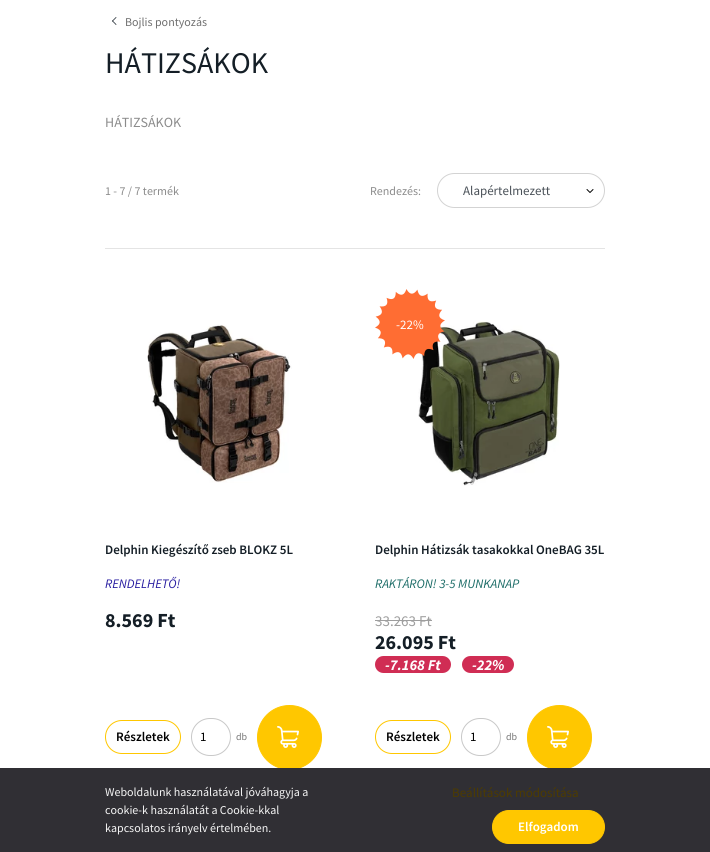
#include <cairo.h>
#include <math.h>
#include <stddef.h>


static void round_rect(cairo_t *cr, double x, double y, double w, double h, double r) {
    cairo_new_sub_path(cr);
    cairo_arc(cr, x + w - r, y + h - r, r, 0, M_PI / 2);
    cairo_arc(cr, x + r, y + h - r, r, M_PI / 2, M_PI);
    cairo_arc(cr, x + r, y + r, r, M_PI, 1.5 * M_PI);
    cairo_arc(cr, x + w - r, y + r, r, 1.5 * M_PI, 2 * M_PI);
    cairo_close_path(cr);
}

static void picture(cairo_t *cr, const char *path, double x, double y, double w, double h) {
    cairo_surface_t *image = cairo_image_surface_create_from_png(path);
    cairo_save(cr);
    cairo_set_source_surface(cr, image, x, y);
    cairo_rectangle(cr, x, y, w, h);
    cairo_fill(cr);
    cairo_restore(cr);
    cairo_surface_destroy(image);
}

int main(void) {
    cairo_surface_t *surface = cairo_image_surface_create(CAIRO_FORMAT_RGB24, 710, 852);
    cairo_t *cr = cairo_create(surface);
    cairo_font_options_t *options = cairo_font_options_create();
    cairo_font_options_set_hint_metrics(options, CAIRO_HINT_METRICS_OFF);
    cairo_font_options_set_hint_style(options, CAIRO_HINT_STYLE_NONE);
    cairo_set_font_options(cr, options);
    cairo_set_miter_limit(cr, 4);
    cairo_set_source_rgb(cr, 1, 1, 1);
    cairo_paint(cr);
    cairo_set_source_rgb(cr, 0.082, 0.118, 0.149);
    cairo_new_path(cr);
    cairo_move_to(cr, 116.5, 24.5);
    cairo_line_to(cr, 116, 25);
    cairo_line_to(cr, 112, 21);
    cairo_line_to(cr, 112.5, 20.5);
    cairo_close_path(cr);
    cairo_fill(cr);
    cairo_new_path(cr);
    cairo_move_to(cr, 116.5, 17.5);
    cairo_line_to(cr, 112.5, 21.5);
    cairo_line_to(cr, 112, 21);
    cairo_line_to(cr, 116, 17);
    cairo_close_path(cr);
    cairo_fill(cr);
    cairo_select_font_face(cr, "Source Sans Pro", CAIRO_FONT_SLANT_NORMAL, CAIRO_FONT_WEIGHT_NORMAL);
    cairo_set_font_size(cr, 12);
    cairo_set_source_rgb(cr, 0.435, 0.435, 0.435);
    cairo_move_to(cr, 125, 26);
    cairo_show_text(cr, "Bojlis pontyozás");
    cairo_set_font_size(cr, 30);
    cairo_set_source_rgb(cr, 0.082, 0.118, 0.149);
    cairo_move_to(cr, 105, 73);
    cairo_show_text(cr, "HÁTIZSÁKOK");
    cairo_set_font_size(cr, 14);
    cairo_set_source_rgb(cr, 0.545, 0.545, 0.545);
    cairo_move_to(cr, 105, 127);
    cairo_show_text(cr, "HÁTIZSÁKOK");
    cairo_set_source_rgb(cr, 0.894, 0.894, 0.894);
    cairo_rectangle(cr, 105, 248, 500, 1);
    cairo_fill(cr);
    cairo_set_font_size(cr, 12);
    cairo_set_source_rgb(cr, 0.545, 0.545, 0.545);
    cairo_move_to(cr, 105, 195);
    cairo_show_text(cr, "1 - 7 / 7 termék");
    cairo_move_to(cr, 370, 195);
    cairo_show_text(cr, "Rendezés:");
    picture(cr, "img1.png", 586, 189, 8, 4);
    round_rect(cr, 437.5, 173.5, 167, 34, 17);
    cairo_set_source_rgb(cr, 0.827, 0.827, 0.827);
    cairo_set_line_width(cr, 1);
    cairo_stroke(cr);
    cairo_set_font_size(cr, 13);
    cairo_set_source_rgb(cr, 0.286, 0.314, 0.341);
    cairo_move_to(cr, 463, 195);
    cairo_show_text(cr, "Alapértelmezett");
    picture(cr, "img2.png", 147, 324, 145, 159);
    cairo_select_font_face(cr, "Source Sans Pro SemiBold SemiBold", CAIRO_FONT_SLANT_NORMAL, CAIRO_FONT_WEIGHT_NORMAL);
    cairo_set_source_rgb(cr, 0.082, 0.118, 0.149);
    cairo_move_to(cr, 105, 554);
    cairo_show_text(cr, "Delphin Kiegészítő zseb BLOKZ 5L");
    cairo_select_font_face(cr, "Source Sans Pro", CAIRO_FONT_SLANT_ITALIC, CAIRO_FONT_WEIGHT_NORMAL);
    cairo_set_source_rgb(cr, 0.161, 0.118, 0.631);
    cairo_move_to(cr, 105, 588);
    cairo_show_text(cr, "RENDELHETŐ!");
    cairo_select_font_face(cr, "Source Sans Pro", CAIRO_FONT_SLANT_NORMAL, CAIRO_FONT_WEIGHT_BOLD);
    cairo_set_font_size(cr, 20);
    cairo_set_source_rgb(cr, 0.082, 0.118, 0.149);
    cairo_move_to(cr, 105, 627);
    cairo_show_text(cr, "8.569 Ft");
    round_rect(cr, 105.5, 720.5, 75, 33, 16.5);
    cairo_set_source_rgb(cr, 1, 0.78, 0);
    cairo_stroke(cr);
    cairo_select_font_face(cr, "Source Sans Pro SemiBold SemiBold", CAIRO_FONT_SLANT_NORMAL, CAIRO_FONT_WEIGHT_NORMAL);
    cairo_set_font_size(cr, 13);
    cairo_set_source_rgb(cr, 0, 0, 0);
    cairo_move_to(cr, 116, 741);
    cairo_show_text(cr, "Részletek");
    cairo_set_source_rgb(cr, 1, 0.78, 0);
    cairo_new_path(cr);
    cairo_arc(cr, 289.5, 737.5, 32, 0, 2 * M_PI);
    cairo_fill_preserve(cr);
    cairo_stroke(cr);
    round_rect(cr, 191.5, 718.5, 39, 37, 18.5);
    cairo_set_source_rgb(cr, 0.784, 0.784, 0.784);
    cairo_stroke(cr);
    cairo_select_font_face(cr, "Source Sans Pro", CAIRO_FONT_SLANT_NORMAL, CAIRO_FONT_WEIGHT_NORMAL);
    cairo_set_source_rgb(cr, 0, 0, 0);
    cairo_move_to(cr, 200, 741);
    cairo_show_text(cr, "1");
    cairo_set_font_size(cr, 10);
    cairo_set_source_rgb(cr, 0.463, 0.463, 0.463);
    cairo_move_to(cr, 236, 740);
    cairo_show_text(cr, "db");
    picture(cr, "img3.png", 277, 726, 22, 22);
    picture(cr, "img5.png", 418, 321, 142, 165);
    picture(cr, "img4.png", 375, 289, 70, 70);
    cairo_set_font_size(cr, 13);
    cairo_set_source_rgb(cr, 1, 1, 1);
    cairo_move_to(cr, 396, 329);
    cairo_show_text(cr, "-22%");
    cairo_select_font_face(cr, "Source Sans Pro SemiBold SemiBold", CAIRO_FONT_SLANT_NORMAL, CAIRO_FONT_WEIGHT_NORMAL);
    cairo_set_source_rgb(cr, 0.082, 0.118, 0.149);
    cairo_move_to(cr, 375, 554);
    cairo_show_text(cr, "Delphin Hátizsák tasakokkal OneBAG 35L");
    cairo_select_font_face(cr, "Source Sans Pro", CAIRO_FONT_SLANT_ITALIC, CAIRO_FONT_WEIGHT_NORMAL);
    cairo_set_source_rgb(cr, 0.102, 0.42, 0.4);
    cairo_move_to(cr, 375, 588);
    cairo_show_text(cr, "RAKTÁRON! 3-5 MUNKANAP");
    cairo_select_font_face(cr, "Source Sans Pro", CAIRO_FONT_SLANT_NORMAL, CAIRO_FONT_WEIGHT_NORMAL);
    cairo_set_font_size(cr, 15);
    cairo_set_source_rgb(cr, 0.62, 0.62, 0.62);
    cairo_move_to(cr, 375, 626);
    cairo_show_text(cr, "33.263 Ft");
    cairo_rectangle(cr, 375, 620, 57, 1);
    cairo_fill(cr);
    cairo_select_font_face(cr, "Source Sans Pro", CAIRO_FONT_SLANT_NORMAL, CAIRO_FONT_WEIGHT_BOLD);
    cairo_set_font_size(cr, 20);
    cairo_set_source_rgb(cr, 0.082, 0.118, 0.149);
    cairo_move_to(cr, 375, 649);
    cairo_show_text(cr, "26.095 Ft");
    cairo_set_source_rgb(cr, 0.816, 0.176, 0.329);
    round_rect(cr, 375, 656, 76, 17, 8.5);
    cairo_fill(cr);
    cairo_select_font_face(cr, "Source Sans Pro", CAIRO_FONT_SLANT_ITALIC, CAIRO_FONT_WEIGHT_BOLD);
    cairo_set_font_size(cr, 15);
    cairo_set_source_rgb(cr, 1, 1, 1);
    cairo_move_to(cr, 385, 670);
    cairo_show_text(cr, "-7.168 Ft");
    cairo_set_source_rgb(cr, 0.816, 0.176, 0.329);
    round_rect(cr, 462, 656, 52, 17, 8.5);
    cairo_fill(cr);
    cairo_set_source_rgb(cr, 1, 1, 1);
    cairo_move_to(cr, 472, 670);
    cairo_show_text(cr, "-22%");
    round_rect(cr, 375.5, 720.5, 75, 33, 16.5);
    cairo_set_source_rgb(cr, 1, 0.78, 0);
    cairo_stroke(cr);
    cairo_select_font_face(cr, "Source Sans Pro SemiBold SemiBold", CAIRO_FONT_SLANT_NORMAL, CAIRO_FONT_WEIGHT_NORMAL);
    cairo_set_font_size(cr, 13);
    cairo_set_source_rgb(cr, 0, 0, 0);
    cairo_move_to(cr, 386, 741);
    cairo_show_text(cr, "Részletek");
    cairo_set_source_rgb(cr, 1, 0.78, 0);
    cairo_new_path(cr);
    cairo_arc(cr, 559.5, 737.5, 32, 0, 2 * M_PI);
    cairo_fill_preserve(cr);
    cairo_stroke(cr);
    round_rect(cr, 461.5, 718.5, 39, 37, 18.5);
    cairo_set_source_rgb(cr, 0.784, 0.784, 0.784);
    cairo_stroke(cr);
    cairo_select_font_face(cr, "Source Sans Pro", CAIRO_FONT_SLANT_NORMAL, CAIRO_FONT_WEIGHT_NORMAL);
    cairo_set_source_rgb(cr, 0, 0, 0);
    cairo_move_to(cr, 470, 741);
    cairo_show_text(cr, "1");
    cairo_set_font_size(cr, 10);
    cairo_set_source_rgb(cr, 0.463, 0.463, 0.463);
    cairo_move_to(cr, 506, 740);
    cairo_show_text(cr, "db");
    picture(cr, "img3.png", 547, 726, 22, 22);
    cairo_set_source_rgb(cr, 0.188, 0.184, 0.204);
    cairo_rectangle(cr, 0, 768, 710, 84);
    cairo_fill(cr);
    cairo_set_font_size(cr, 12);
    cairo_set_source_rgb(cr, 0.961, 0.961, 0.961);
    cairo_move_to(cr, 105, 796);
    cairo_show_text(cr, "Weboldalunk használatával jóváhagyja a");
    cairo_move_to(cr, 105, 814);
    cairo_show_text(cr, "cookie-k használatát a Cookie-kkal");
    cairo_move_to(cr, 105, 832);
    cairo_show_text(cr, "kapcsolatos irányelv értelmében.");
    cairo_set_font_size(cr, 13);
    cairo_set_source_rgb(cr, 0.302, 0.231, 0);
    cairo_move_to(cr, 452, 797);
    cairo_show_text(cr, "Beállítások módosítása");
    cairo_set_source_rgb(cr, 1, 0.78, 0);
    round_rect(cr, 492.5, 810.5, 112, 33, 16.5);
    cairo_fill_preserve(cr);
    cairo_stroke(cr);
    cairo_select_font_face(cr, "Source Sans Pro SemiBold SemiBold", CAIRO_FONT_SLANT_NORMAL, CAIRO_FONT_WEIGHT_NORMAL);
    cairo_set_source_rgb(cr, 1, 1, 1);
    cairo_move_to(cr, 518, 831);
    cairo_show_text(cr, "Elfogadom");
    cairo_surface_write_to_png(surface, "page.png");
    cairo_font_options_destroy(options);
    cairo_destroy(cr);
    cairo_surface_destroy(surface);
    return 0;
}
